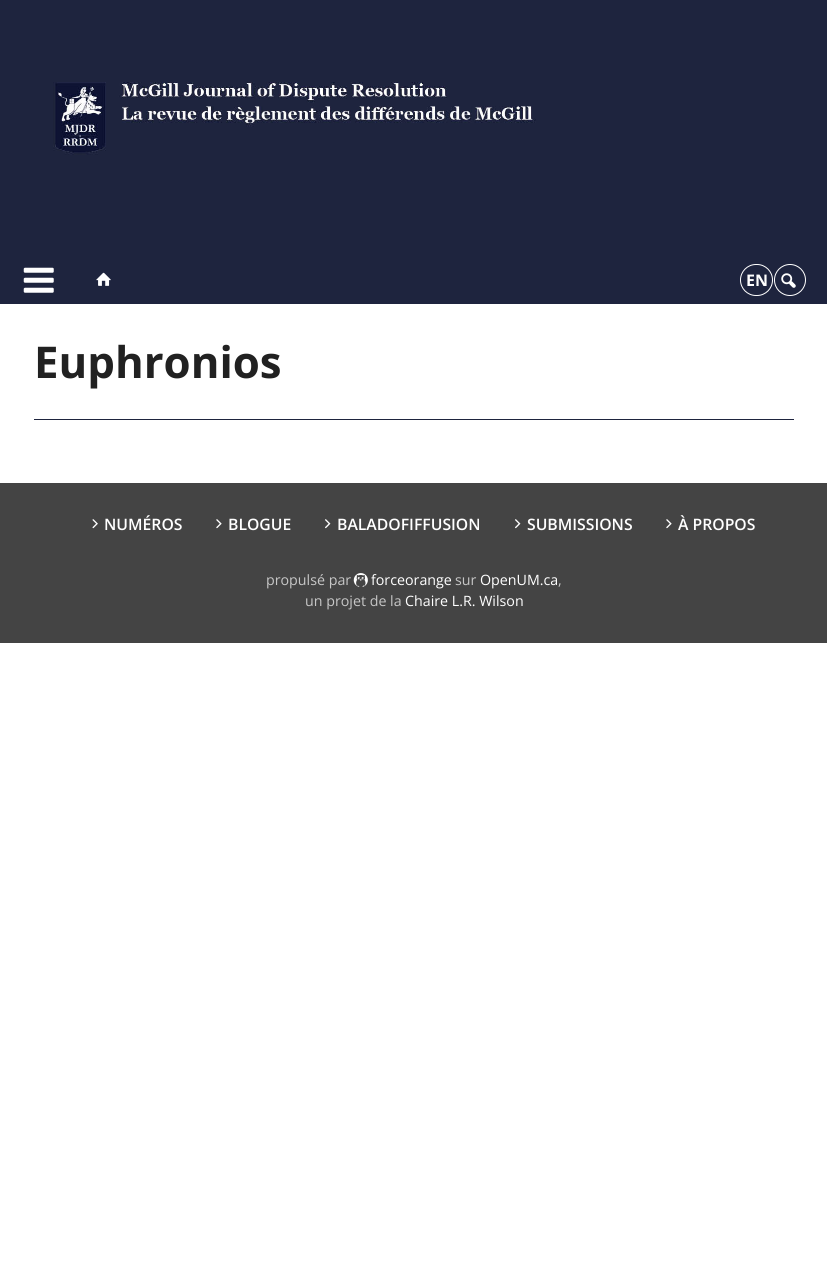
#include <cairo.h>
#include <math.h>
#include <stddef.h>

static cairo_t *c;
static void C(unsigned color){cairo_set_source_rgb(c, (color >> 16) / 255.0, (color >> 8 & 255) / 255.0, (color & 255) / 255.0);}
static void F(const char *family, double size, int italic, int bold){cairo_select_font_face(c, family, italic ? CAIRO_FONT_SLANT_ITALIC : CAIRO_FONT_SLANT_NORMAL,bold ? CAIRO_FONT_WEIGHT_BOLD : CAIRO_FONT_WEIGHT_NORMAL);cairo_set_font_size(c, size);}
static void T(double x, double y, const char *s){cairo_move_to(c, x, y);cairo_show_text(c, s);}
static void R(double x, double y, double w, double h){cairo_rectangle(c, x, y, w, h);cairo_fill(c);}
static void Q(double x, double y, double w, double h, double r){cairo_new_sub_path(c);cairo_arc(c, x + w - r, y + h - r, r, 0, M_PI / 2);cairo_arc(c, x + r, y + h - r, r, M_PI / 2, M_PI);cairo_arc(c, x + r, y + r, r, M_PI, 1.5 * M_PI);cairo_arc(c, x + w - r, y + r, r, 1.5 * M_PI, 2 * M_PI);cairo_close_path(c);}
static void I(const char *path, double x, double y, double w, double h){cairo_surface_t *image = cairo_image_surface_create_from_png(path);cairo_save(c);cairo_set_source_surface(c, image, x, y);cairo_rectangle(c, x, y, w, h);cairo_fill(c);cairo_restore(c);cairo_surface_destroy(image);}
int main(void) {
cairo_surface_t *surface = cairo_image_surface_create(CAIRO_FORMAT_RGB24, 827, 1273);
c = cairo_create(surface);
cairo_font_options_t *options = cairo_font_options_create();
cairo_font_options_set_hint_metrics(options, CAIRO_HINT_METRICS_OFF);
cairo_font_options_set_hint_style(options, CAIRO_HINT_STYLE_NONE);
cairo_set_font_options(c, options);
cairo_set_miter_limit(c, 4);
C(0xffffff);
cairo_paint(c);
C(0x1e243e);
R(0,0,827,304);
I("1.png",53,82,483,73);
I("2.png",23,267,31,26);
I("3.png",96,272,15,14);
Q(740.5,264.5,32,31,15.5);
C(0xffffff);
cairo_set_line_width(c,1);
cairo_stroke(c);
F("Open Sans",16,0,1);
T(746,286,"EN");
cairo_new_path(c);
cairo_arc(c,790,280,15.5,0,2 * M_PI);
cairo_stroke(c);
I("4.png",781,273,15,15);
F("Open Sans",43.75,0,1);
C(0x212121);
T(34,378,"Euphronios");
C(0x1e243e);
R(34,419,760,1);
C(0x444444);
R(0,483,827,160);
I("5.png",92,519,6,10);
F("Open Sans SemiBold",15.75,0,0);
C(0xffffff);
T(104,530,"NUMÉROS");
I("6.png",216,519,6,10);
T(228,530,"BLOGUE");
I("7.png",325,519,6,10);
T(337,530,"BALADOFIFFUSION");
I("7.png",515,519,6,10);
T(527,530,"SUBMISSIONS");
I("6.png",666,519,6,10);
T(678,530,"À PROPOS");
F("Open Sans",14.25,0,0);
C(0xc7c7c7);
T(266,585,"propulsé par");
I("8.png",353,573,15,14);
C(0xffffff);
T(371,585,"forceorange");
C(0xc7c7c7);
T(455,585,"sur");
C(0xffffff);
T(480,585,"OpenUM.ca");
C(0xc7c7c7);
T(558,585,",");
T(305,606,"un projet de la");
C(0xffffff);
T(405,606,"Chaire L.R. Wilson");
cairo_surface_write_to_png(surface, "o.png");
cairo_font_options_destroy(options);
cairo_destroy(c);
cairo_surface_destroy(surface);
return 0;
}
